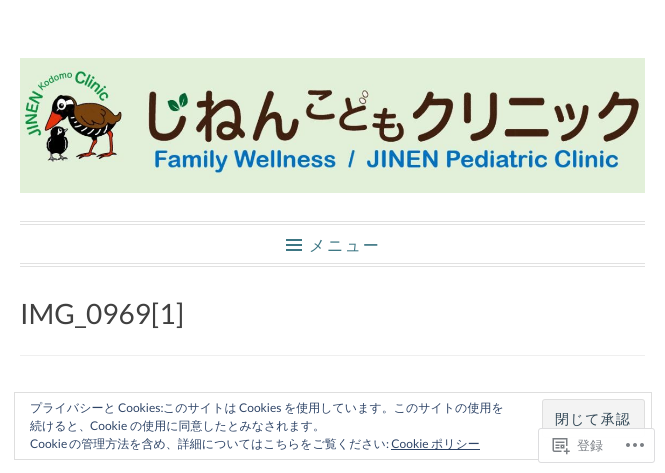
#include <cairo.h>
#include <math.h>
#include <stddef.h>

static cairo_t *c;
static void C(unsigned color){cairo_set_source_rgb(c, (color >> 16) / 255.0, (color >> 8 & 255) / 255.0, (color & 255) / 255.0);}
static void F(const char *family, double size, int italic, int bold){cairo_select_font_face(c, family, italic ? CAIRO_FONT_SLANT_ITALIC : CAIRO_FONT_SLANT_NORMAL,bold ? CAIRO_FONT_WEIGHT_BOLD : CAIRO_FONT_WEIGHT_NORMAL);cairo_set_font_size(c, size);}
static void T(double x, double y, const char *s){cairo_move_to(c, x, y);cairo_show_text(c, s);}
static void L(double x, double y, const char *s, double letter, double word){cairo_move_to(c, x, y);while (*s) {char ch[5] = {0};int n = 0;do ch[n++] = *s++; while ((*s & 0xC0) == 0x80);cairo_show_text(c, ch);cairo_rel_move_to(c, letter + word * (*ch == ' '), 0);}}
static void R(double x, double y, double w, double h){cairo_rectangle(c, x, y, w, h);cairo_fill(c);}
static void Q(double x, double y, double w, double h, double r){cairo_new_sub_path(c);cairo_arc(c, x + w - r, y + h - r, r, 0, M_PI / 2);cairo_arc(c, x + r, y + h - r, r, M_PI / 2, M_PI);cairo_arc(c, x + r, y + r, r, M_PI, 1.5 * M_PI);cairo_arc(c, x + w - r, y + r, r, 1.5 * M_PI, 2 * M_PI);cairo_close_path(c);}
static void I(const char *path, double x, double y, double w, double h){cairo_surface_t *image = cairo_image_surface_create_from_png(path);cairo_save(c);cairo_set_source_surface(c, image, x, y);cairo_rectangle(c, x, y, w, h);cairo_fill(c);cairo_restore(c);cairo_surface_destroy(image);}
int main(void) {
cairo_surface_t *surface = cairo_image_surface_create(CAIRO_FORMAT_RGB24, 665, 473);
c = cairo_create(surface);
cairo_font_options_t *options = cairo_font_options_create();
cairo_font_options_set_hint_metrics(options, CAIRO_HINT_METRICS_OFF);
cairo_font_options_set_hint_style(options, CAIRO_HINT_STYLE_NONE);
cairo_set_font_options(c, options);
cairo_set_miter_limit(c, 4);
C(0xffffff);
cairo_paint(c);
I("1.png",20,58,625,135);
C(0xe1e1e1);
R(20,221,625,1);
R(20,224,625,1);
R(20,263,625,1);
R(20,266,625,1);
I("2.png",286,239,16,12);
F("WenQuanYi Zen Hei Medium",16,0,0);
C(0x3c7683);
L(309,251,"メニュー",1.5,0);
F("Lato",28,0,0);
C(0x404040);
T(20,324,"IMG_0969[1]");
C(0xefefef);
R(20,355,625,1);
cairo_rectangle(c,14.5,392.5,637,67);
C(0xdedede);
cairo_set_line_width(c,1);
cairo_stroke(c);
F("WenQuanYi Zen Hei Medium",12,0,0);
C(0x2e4467);
T(30,412,"プライバシーと");
F("Lato",12,0,0);
T(118,412,"Cookies:");
F("WenQuanYi Zen Hei Medium",12,0,0);
T(163,412,"このサイトは");
F("Lato",12,0,0);
T(239,412,"Cookies");
F("WenQuanYi Zen Hei Medium",12,0,0);
T(284,412,"を使用しています。このサイトの使用を");
T(30,430,"続けると、");
F("Lato",12,0,0);
T(90,430,"Cookie");
F("WenQuanYi Zen Hei Medium",12,0,0);
T(130,430,"の使用に同意したとみなされます。");
C(0xf3f3f3);
Q(542.5,399.5,102,38,2.5);
cairo_fill_preserve(c);
C(0xdedede);
cairo_stroke(c);
F("WenQuanYi Zen Hei Medium",14,0,0);
C(0x2e4453);
L(555,424,"閉じて承認",1,0);
F("Lato",12,0,0);
C(0x2e4467);
T(30,448,"Cookie");
F("WenQuanYi Zen Hei Medium",12,0,0);
T(69,448,"の管理方法を含め、詳細についてはこちらをご覧ください");
F("Lato",12,0,0);
T(386,448,": Cookie");
R(391,449,89,1);
F("WenQuanYi Zen Hei Medium",12,0,0);
T(431,448,"ポリシー");
cairo_set_source_rgba(c,1,1,1,0.98);
Q(538.5,428.5,116,34,2.5);
cairo_fill_preserve(c);
C(0xdddddf);
cairo_stroke(c);
I("3.png",552,438,18,17);
F("WenQuanYi Zen Hei Medium",13,0,0);
C(0x7b7f85);
T(577,450,"登録");
I("4.png",626,443,18,4);
cairo_surface_write_to_png(surface, "o.png");
cairo_font_options_destroy(options);
cairo_destroy(c);
cairo_surface_destroy(surface);
return 0;
}
